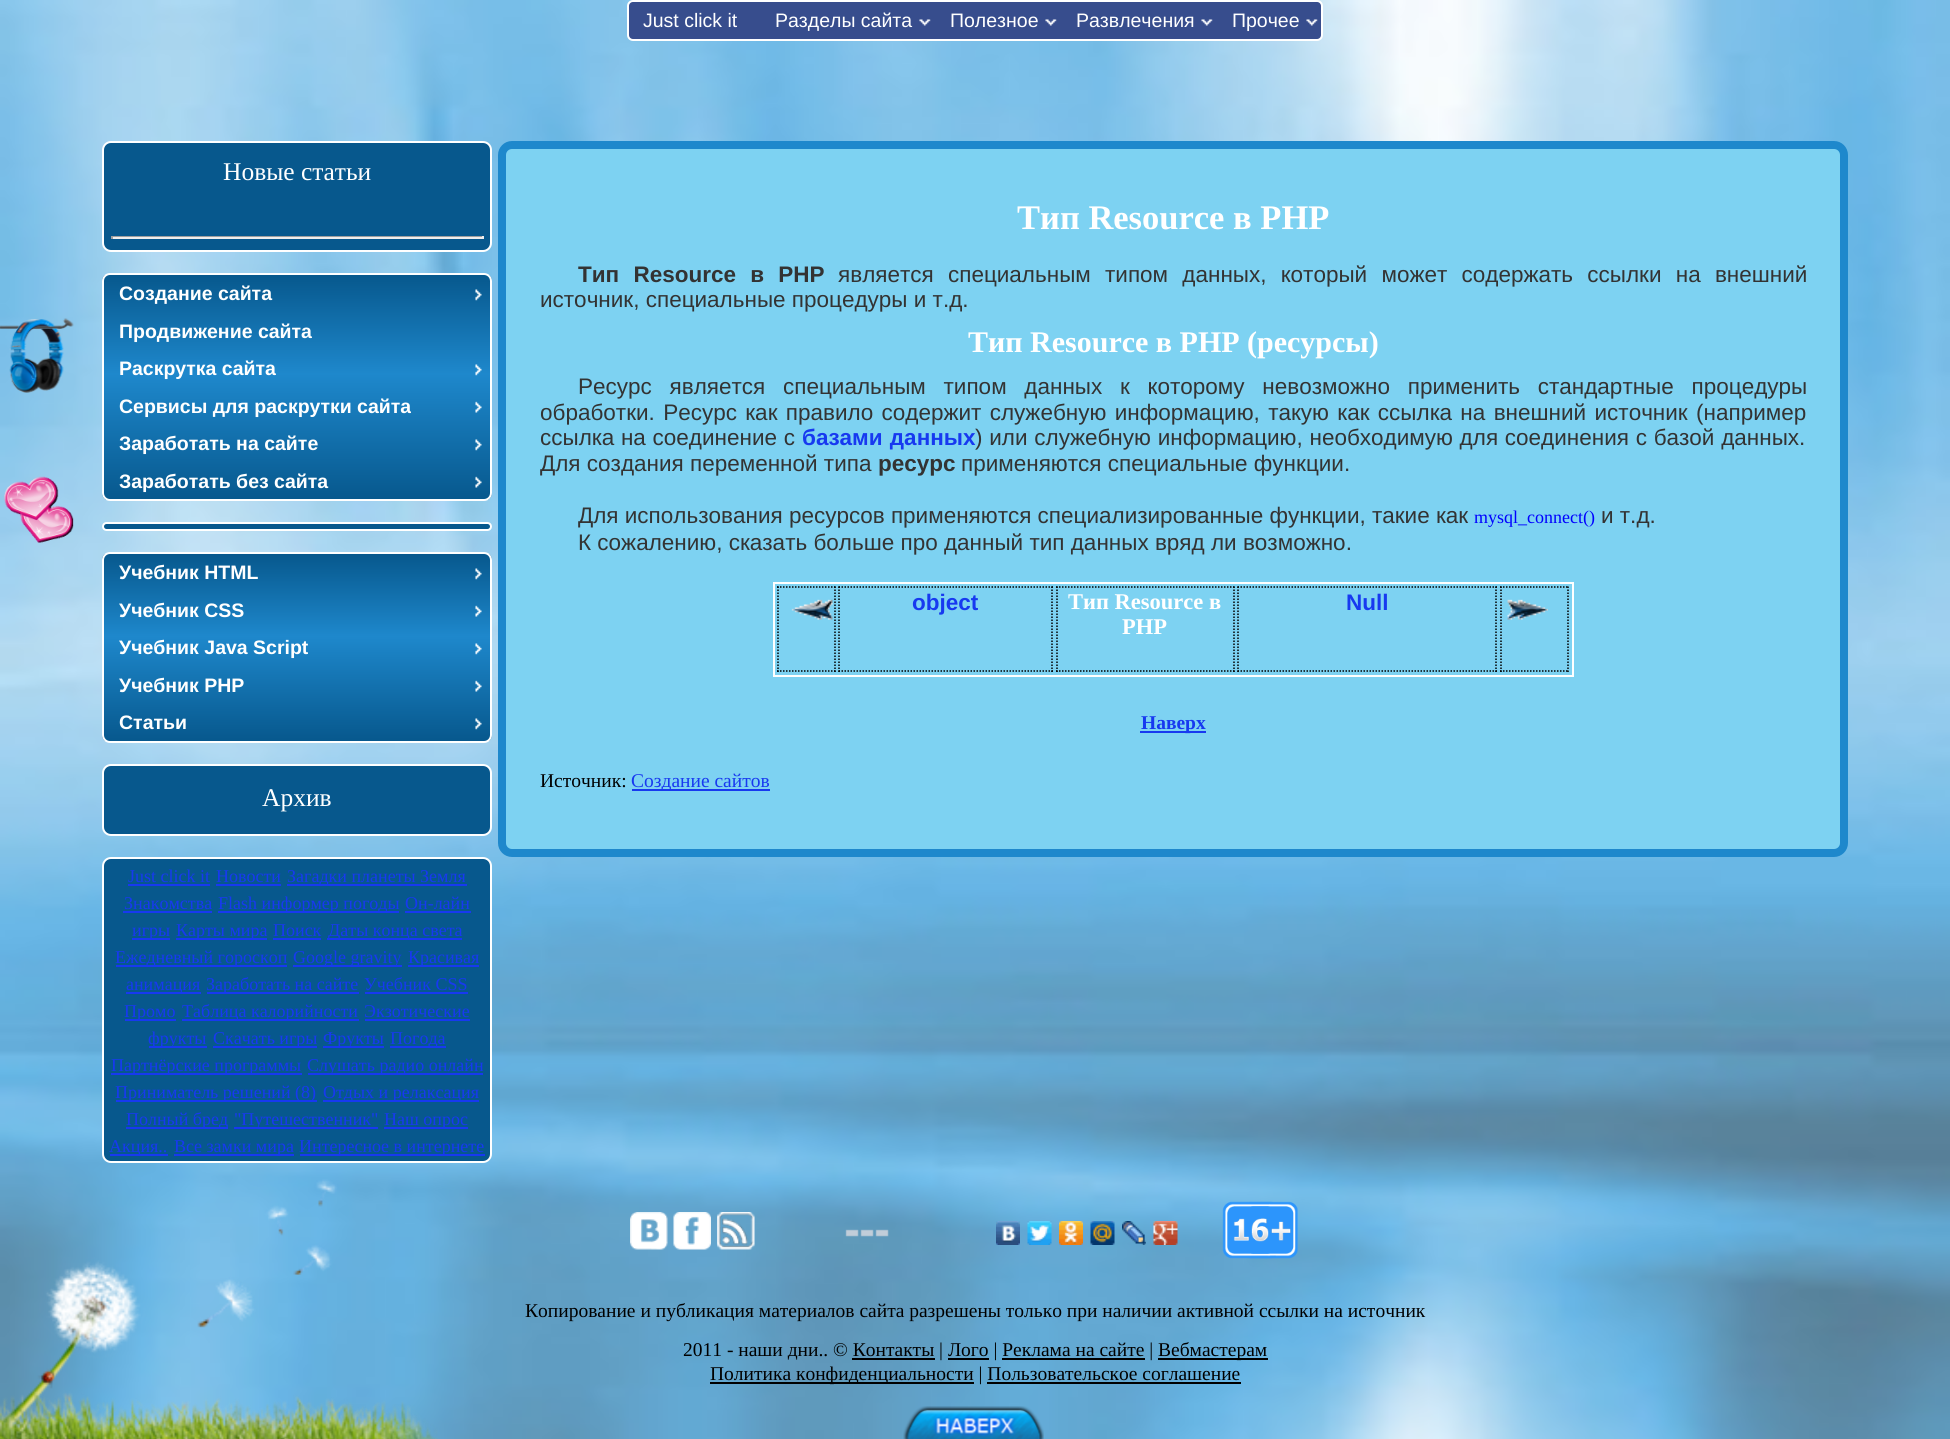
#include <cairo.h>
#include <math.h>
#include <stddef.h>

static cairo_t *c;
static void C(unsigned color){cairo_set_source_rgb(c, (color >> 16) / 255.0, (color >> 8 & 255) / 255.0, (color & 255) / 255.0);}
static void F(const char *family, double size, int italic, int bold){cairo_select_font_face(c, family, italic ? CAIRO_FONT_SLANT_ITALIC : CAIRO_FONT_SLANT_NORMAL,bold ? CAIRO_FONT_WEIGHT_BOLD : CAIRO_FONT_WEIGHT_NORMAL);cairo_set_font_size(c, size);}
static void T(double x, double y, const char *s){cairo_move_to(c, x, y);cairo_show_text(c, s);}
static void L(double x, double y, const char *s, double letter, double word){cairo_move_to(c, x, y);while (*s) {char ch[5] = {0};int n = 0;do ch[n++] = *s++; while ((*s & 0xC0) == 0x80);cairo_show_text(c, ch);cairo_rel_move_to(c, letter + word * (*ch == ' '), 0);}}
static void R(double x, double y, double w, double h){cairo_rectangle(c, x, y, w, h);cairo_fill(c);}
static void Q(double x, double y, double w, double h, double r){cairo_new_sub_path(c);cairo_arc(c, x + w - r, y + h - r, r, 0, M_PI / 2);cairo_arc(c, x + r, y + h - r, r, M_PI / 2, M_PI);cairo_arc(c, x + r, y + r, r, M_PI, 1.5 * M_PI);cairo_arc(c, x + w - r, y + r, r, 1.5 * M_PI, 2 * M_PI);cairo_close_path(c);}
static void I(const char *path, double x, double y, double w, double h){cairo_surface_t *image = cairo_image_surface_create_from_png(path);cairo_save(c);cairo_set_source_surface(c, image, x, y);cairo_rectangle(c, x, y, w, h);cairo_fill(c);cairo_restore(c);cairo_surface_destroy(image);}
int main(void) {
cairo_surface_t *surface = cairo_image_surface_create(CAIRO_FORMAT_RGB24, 1950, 1439);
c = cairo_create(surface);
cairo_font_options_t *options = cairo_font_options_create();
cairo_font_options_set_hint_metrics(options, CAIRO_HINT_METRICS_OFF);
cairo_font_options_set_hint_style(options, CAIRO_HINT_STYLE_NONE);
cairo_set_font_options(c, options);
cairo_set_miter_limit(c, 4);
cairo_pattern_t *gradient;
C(0xffffff);
cairo_paint(c);
I("1.png",0,0,1950,1439);
C(0x374d8d);
Q(628,1,694,39,5);
cairo_fill_preserve(c);
C(0xffffff);
cairo_stroke(c);
F("Liberation Sans",19.5,0,0);
T(643,27,"Just click it");
I("2.png",919,19,12,7);
T(775,27,"Разделы сайта");
I("3.png",1045,19,12,7);
T(950,27,"Полезное");
I("3.png",1201,19,12,7);
T(1076,27,"Развлечения");
I("3.png",1306,19,12,7);
T(1232,27,"Прочее");
I("4.png",0,318,74,75);
C(0x07588d);
Q(103,142,388,109,8);
cairo_fill_preserve(c);
C(0xffffff);
cairo_stroke(c);
F("Liberation Serif",25.5,0,0);
T(223,180,"Новые статьи");
C(0x9f9f9f);
R(111,236,372,1);
C(0xeeeeee);
R(482,236,2,3);
R(111,237,372,2);
C(0x9f9f9f);
R(111,236,2,3);
cairo_save(c);
Q(102,273,390,228,8);
cairo_clip(c);
gradient = cairo_pattern_create_linear(297,275,297,500);
cairo_pattern_add_color_stop_rgba(gradient,0,0.027,0.345,0.553,1);
cairo_pattern_add_color_stop_rgba(gradient,.44,0.118,0.533,0.8,1);
cairo_pattern_add_color_stop_rgba(gradient,1,0.027,0.345,0.553,1);
cairo_set_source(c,gradient);
cairo_pattern_destroy(gradient);
R(102,275,390,225);
cairo_restore(c);
Q(103,274,388,226,7);
C(0xffffff);
cairo_stroke(c);
I("5.png",475,289,7,12);
F("Liberation Sans",19.5,0,1);
T(119,300,"Создание сайта");
T(119,338,"Продвижение сайта");
I("6.png",475,364,7,12);
T(119,375,"Раскрутка сайта");
I("7.png",475,401,7,12);
T(119,413,"Сервисы для раскрутки сайта");
I("8.png",475,439,7,12);
T(119,450,"Заработать на сайте");
I("9.png",475,476,7,12);
T(119,488,"Заработать без сайта");
C(0x07588d);
Q(103,523,388,7,3.5);
cairo_fill_preserve(c);
C(0xffffff);
cairo_stroke(c);
cairo_save(c);
Q(102,552,390,191,8);
cairo_clip(c);
gradient = cairo_pattern_create_linear(297,554,297,741);
cairo_pattern_add_color_stop_rgba(gradient,0,0.027,0.345,0.553,1);
cairo_pattern_add_color_stop_rgba(gradient,.44,0.118,0.533,0.8,1);
cairo_pattern_add_color_stop_rgba(gradient,1,0.027,0.345,0.553,1);
cairo_set_source(c,gradient);
cairo_pattern_destroy(gradient);
R(102,554,390,187);
cairo_restore(c);
Q(103,553,388,189,7);
cairo_stroke(c);
I("10.png",475,568,7,12);
T(119,579,"Учебник HTML");
I("11.png",475,605,7,12);
T(119,617,"Учебник CSS");
I("12.png",475,643,7,12);
T(119,654,"Учебник Java Script");
I("13.png",475,680,7,12);
T(119,692,"Учебник PHP");
I("14.png",475,718,7,12);
T(119,729,"Статьи");
C(0x07588d);
Q(103,765,388,70,8);
cairo_fill_preserve(c);
C(0xffffff);
cairo_stroke(c);
F("Liberation Serif",25.5,0,0);
T(262,806,"Архив");
C(0x07588d);
Q(103,858,388,304,8);
cairo_fill_preserve(c);
C(0xffffff);
cairo_stroke(c);
F("Liberation Serif",18,0,0);
C(0x1739f0);
T(128,882,"Just click it");
R(128,884,82,2);
T(216,882,"Новости");
R(216,884,65,2);
R(287,884,180,2);
T(287,882,"Загадки планеты Земля");
T(124,909,"Знакомства");
R(123,911,89,2);
R(218,911,181,2);
T(218,909,"Flash информер погоды");
T(405,909,"Он-лайн");
R(405,911,66,2);
R(132,938,38,2);
T(132,936,"игры");
R(176,938,91,2);
T(176,936,"Карты мира");
T(273,936,"Поиск");
R(273,938,48,2);
R(327,938,135,2);
T(328,936,"Даты конца света");
R(116,965,171,2);
T(115,963,"Ежедневный гороскоп");
R(293,965,109,2);
T(293,963,"Google gravity");
R(408,965,71,2);
T(408,963,"Красивая");
R(126,992,75,2);
T(126,990,"анимация");
R(207,992,152,2);
T(206,990,"Заработать на сайте");
T(364,990,"Учебник CSS");
R(365,992,103,2);
R(125,1019,51,2);
T(124,1017,"Промо");
R(182,1019,177,2);
T(182,1017,"Таблица калорийности");
T(364,1017,"Экзотические");
R(365,1019,105,2);
R(149,1046,58,2);
T(148,1044,"фрукты");
R(213,1046,104,2);
T(213,1044,"Скачать игры");
R(323,1046,61,2);
T(323,1044,"Фрукты");
R(390,1046,56,2);
T(390,1044,"Погода");
R(111,1073,191,2);
T(111,1071,"Партнёрские программы");
R(308,1073,175,2);
T(307,1071,"Слушать радио онлайн");
R(116,1100,201,2);
T(115,1098,"Приниматель решений (8)");
R(323,1100,156,2);
T(323,1098,"Отдых и релаксация");
R(126,1127,102,2);
T(126,1125,"Полный бред");
R(234,1127,144,2);
T(234,1125,"\"Путешественник\"");
R(384,1127,84,2);
T(384,1125,"Наш опрос");
R(110,1154,58,2);
T(109,1152,"Акция..");
R(174,1154,120,2);
T(174,1152,"Все замки мира");
R(300,1154,185,2);
T(299,1152,"Интересное в интернете");
C(0x7dd2f2);
Q(502,145,1342,708,10);
cairo_fill_preserve(c);
C(0x1e88cc);
cairo_set_line_width(c,8);
cairo_stroke(c);
F("Liberation Serif",34.5,0,1);
C(0xffffff);
T(1017,229,"Тип Resource в PHP");
F("Liberation Sans",22.5,0,1);
C(0x333333);
L(578,282,"Тип Resource в PHP",0,8);
F("Liberation Sans",22.5,0,0);
L(838,282,"является специальным типом данных, который может содержать ссылки на внешний",0,8);
T(540,307,"источник, специальные процедуры и т.д.");
F("Liberation Serif",30,0,1);
C(0xffffff);
T(968,352,"Тип Resource в PHP (ресурсы)");
F("Liberation Sans",22.5,0,0);
C(0x333333);
L(578,394,"Ресурс является специальным типом данных к которому невозможно применить стандартные процедуры",0,11.5);
L(540,420,"обработки. Ресурс как правило содержит служебную информацию, такую как ссылка на внешний источник (например",0,2.1);
L(540,445,"ссылка на соединение с",0,.5);
F("Liberation Sans",22.5,0,1);
C(0x1739f0);
L(802,445,"базами данных",0,1);
F("Liberation Sans",22.5,0,0);
C(0x333333);
L(975,445,") или служебную информацию, необходимую для соединения с базой данных.",0,.5);
T(540,471,"Для создания переменной типа");
F("Liberation Sans",22.5,0,1);
T(878,471,"ресурс");
F("Liberation Sans",22.5,0,0);
T(961,471,"применяются специальные функции.");
T(578,523,"Для использования ресурсов применяются специализированные функции, такие как");
F("Liberation Serif",18,0,0);
C(0x0000ff);
T(1474,523,"mysql_connect()");
F("Liberation Sans",22.5,0,0);
C(0x333333);
T(1601,523,"и т.д.");
T(578,550,"К сожалению, сказать больше про данный тип данных вряд ли возможно.");
cairo_rectangle(c,774,583,799,93);
C(0xffffff);
cairo_set_line_width(c,2);
cairo_stroke(c);
cairo_new_path(c);
cairo_move_to(c,777,587);
cairo_line_to(c,835.5,587);
C(0x000000);
cairo_set_line_width(c,1.5);
cairo_set_dash(c,(double[]){1.5,1.5},2,0);
cairo_stroke(c);
cairo_new_path(c);
cairo_move_to(c,835,586.5);
cairo_line_to(c,835,672);
cairo_stroke(c);
cairo_new_path(c);
cairo_move_to(c,777,671);
cairo_line_to(c,835.5,671);
cairo_stroke(c);
cairo_new_path(c);
cairo_move_to(c,778,586.5);
cairo_line_to(c,778,672);
cairo_stroke(c);
I("15.png",791,599,42,21);
cairo_new_path(c);
cairo_move_to(c,838.5,587);
cairo_line_to(c,1053,587);
cairo_stroke(c);
cairo_new_path(c);
cairo_move_to(c,1052,586.5);
cairo_line_to(c,1052,672);
cairo_stroke(c);
cairo_new_path(c);
cairo_move_to(c,838.5,671);
cairo_line_to(c,1053,671);
cairo_stroke(c);
cairo_new_path(c);
cairo_move_to(c,839,586.5);
cairo_line_to(c,839,672);
cairo_stroke(c);
F("Liberation Sans",22.5,0,1);
C(0x1739f0);
T(912,610,"object");
cairo_new_path(c);
cairo_move_to(c,1056,587);
cairo_line_to(c,1234.5,587);
C(0x000000);
cairo_stroke(c);
cairo_new_path(c);
cairo_move_to(c,1234,586.5);
cairo_line_to(c,1234,672);
cairo_stroke(c);
cairo_new_path(c);
cairo_move_to(c,1056,671);
cairo_line_to(c,1234.5,671);
cairo_stroke(c);
cairo_new_path(c);
cairo_move_to(c,1057,586.5);
cairo_line_to(c,1057,672);
cairo_stroke(c);
F("Liberation Serif",22.5,0,1);
C(0xffffff);
T(1068,609,"Тип Resource в");
T(1122,634,"PHP");
cairo_new_path(c);
cairo_move_to(c,1237.5,587);
cairo_line_to(c,1497,587);
C(0x000000);
cairo_stroke(c);
cairo_new_path(c);
cairo_move_to(c,1496,586.5);
cairo_line_to(c,1496,672);
cairo_stroke(c);
cairo_new_path(c);
cairo_move_to(c,1237.5,671);
cairo_line_to(c,1497,671);
cairo_stroke(c);
cairo_new_path(c);
cairo_move_to(c,1238,586.5);
cairo_line_to(c,1238,672);
cairo_stroke(c);
F("Liberation Sans",22.5,0,1);
C(0x1739f0);
T(1346,610,"Null");
cairo_new_path(c);
cairo_move_to(c,1500,587);
cairo_line_to(c,1569,587);
C(0x000000);
cairo_stroke(c);
cairo_new_path(c);
cairo_move_to(c,1568,586.5);
cairo_line_to(c,1568,672);
cairo_stroke(c);
cairo_new_path(c);
cairo_move_to(c,1500,671);
cairo_line_to(c,1569,671);
cairo_stroke(c);
cairo_new_path(c);
cairo_move_to(c,1501,586.5);
cairo_line_to(c,1501,672);
cairo_stroke(c);
I("16.png",1507,599,41,21);
C(0x1739f0);
R(1140,731,66,2);
F("Liberation Serif",19.5,0,1);
T(1141,729,"Наверх");
F("Liberation Serif",19.5,0,0);
C(0x000000);
T(540,787,"Источник:");
C(0x1739f0);
R(632,789,138,2);
T(631,787,"Создание сайтов");
I("17.png",4,476,70,67);
I("18.png",0,1179,438,260);
I("19.png",903,1406,141,33);
I("20.png",630,1212,38,38);
I("21.png",673,1212,38,38);
I("22.png",717,1212,38,38);
I("23.png",845,1229,44,8);
I("24.png",996,1221,24,24);
I("25.png",1027,1221,25,24);
I("26.png",1059,1221,24,24);
I("27.png",1090,1221,25,24);
I("28.png",1122,1221,24,24);
I("29.png",1153,1221,25,24);
I("30.png",1222,1201,76,58);
C(0x000000);
T(525,1317,"Копирование и публикация материалов сайта разрешены только при наличии активной ссылки на источник");
T(683,1356,"2011 - наши дни.. © Контакты | Лого | Реклама на сайте |");
R(1158,1358,110,2);
T(1158,1356,"Вебмастерам");
R(852,1358,83,2);
R(948,1358,41,2);
R(1002,1358,143,2);
R(710,1382,264,2);
T(710,1380,"Политика конфиденциальности | Пользовательское соглашение");
R(987,1382,254,2);
cairo_surface_write_to_png(surface, "o.png");
cairo_font_options_destroy(options);
cairo_destroy(c);
cairo_surface_destroy(surface);
return 0;
}
